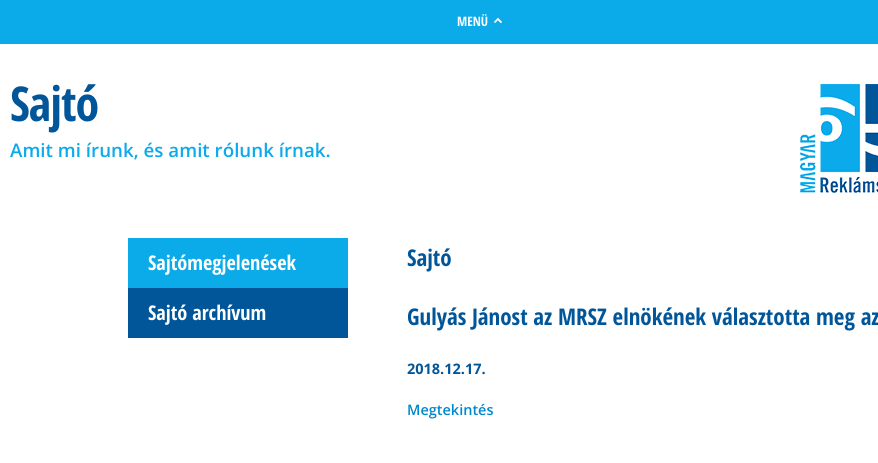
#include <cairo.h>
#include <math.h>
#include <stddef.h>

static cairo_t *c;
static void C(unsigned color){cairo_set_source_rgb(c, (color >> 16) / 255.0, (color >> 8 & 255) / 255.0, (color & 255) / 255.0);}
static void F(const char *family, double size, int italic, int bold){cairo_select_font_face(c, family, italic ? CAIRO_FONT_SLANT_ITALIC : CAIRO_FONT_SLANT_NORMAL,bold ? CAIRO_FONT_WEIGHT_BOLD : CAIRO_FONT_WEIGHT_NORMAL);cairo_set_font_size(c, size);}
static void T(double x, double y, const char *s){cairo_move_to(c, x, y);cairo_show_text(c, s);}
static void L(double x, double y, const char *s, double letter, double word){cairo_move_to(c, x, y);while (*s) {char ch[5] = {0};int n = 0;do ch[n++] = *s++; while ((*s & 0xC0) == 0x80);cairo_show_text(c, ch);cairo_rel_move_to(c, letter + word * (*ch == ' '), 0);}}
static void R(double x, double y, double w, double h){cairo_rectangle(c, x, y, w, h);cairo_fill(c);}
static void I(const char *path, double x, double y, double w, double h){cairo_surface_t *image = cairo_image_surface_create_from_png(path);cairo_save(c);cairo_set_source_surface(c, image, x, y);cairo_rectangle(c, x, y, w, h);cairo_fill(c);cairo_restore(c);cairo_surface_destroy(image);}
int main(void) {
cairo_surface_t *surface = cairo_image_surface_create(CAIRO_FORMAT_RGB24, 878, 463);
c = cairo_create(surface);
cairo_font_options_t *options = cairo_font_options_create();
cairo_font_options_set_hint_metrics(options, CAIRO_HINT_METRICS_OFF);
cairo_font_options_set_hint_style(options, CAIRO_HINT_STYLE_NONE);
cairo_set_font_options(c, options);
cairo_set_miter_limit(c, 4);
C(0xffffff);
cairo_paint(c);
C(0x0babea);
R(0,0,878,44);
F("Open Sans Condensed",13,0,1);
C(0xffffff);
T(457,26,"MENÜ");
I("1.png",494,18,8,5);
F("Open Sans Condensed",48,0,1);
C(0x015699);
L(10,121,"Sajtó",-1,0);
F("Open Sans SemiBold",18.75,0,0);
C(0x0baaeb);
T(10,157,"Amit mi írunk, és amit rólunk írnak.");
I("2.png",800,84,78,109);
C(0x005698);
R(128,288,220,50);
C(0x0babea);
R(128,238,220,50);
F("Open Sans Condensed",20.25,0,1);
C(0xffffff);
T(148,270,"Sajtómegjelenések");
T(148,320,"Sajtó archívum");
F("Open Sans Condensed",23,0,1);
C(0x015699);
T(407,266,"Sajtó");
T(407,325,"Gulyás Jánost az MRSZ elnökének választotta meg az");
F("Open Sans",14.5,0,1);
T(407,374,"2018.12.17.");
F("Open Sans SemiBold",14.5,0,0);
C(0x0088cc);
T(407,415,"Megtekintés");
cairo_surface_write_to_png(surface, "o.png");
cairo_font_options_destroy(options);
cairo_destroy(c);
cairo_surface_destroy(surface);
return 0;
}
